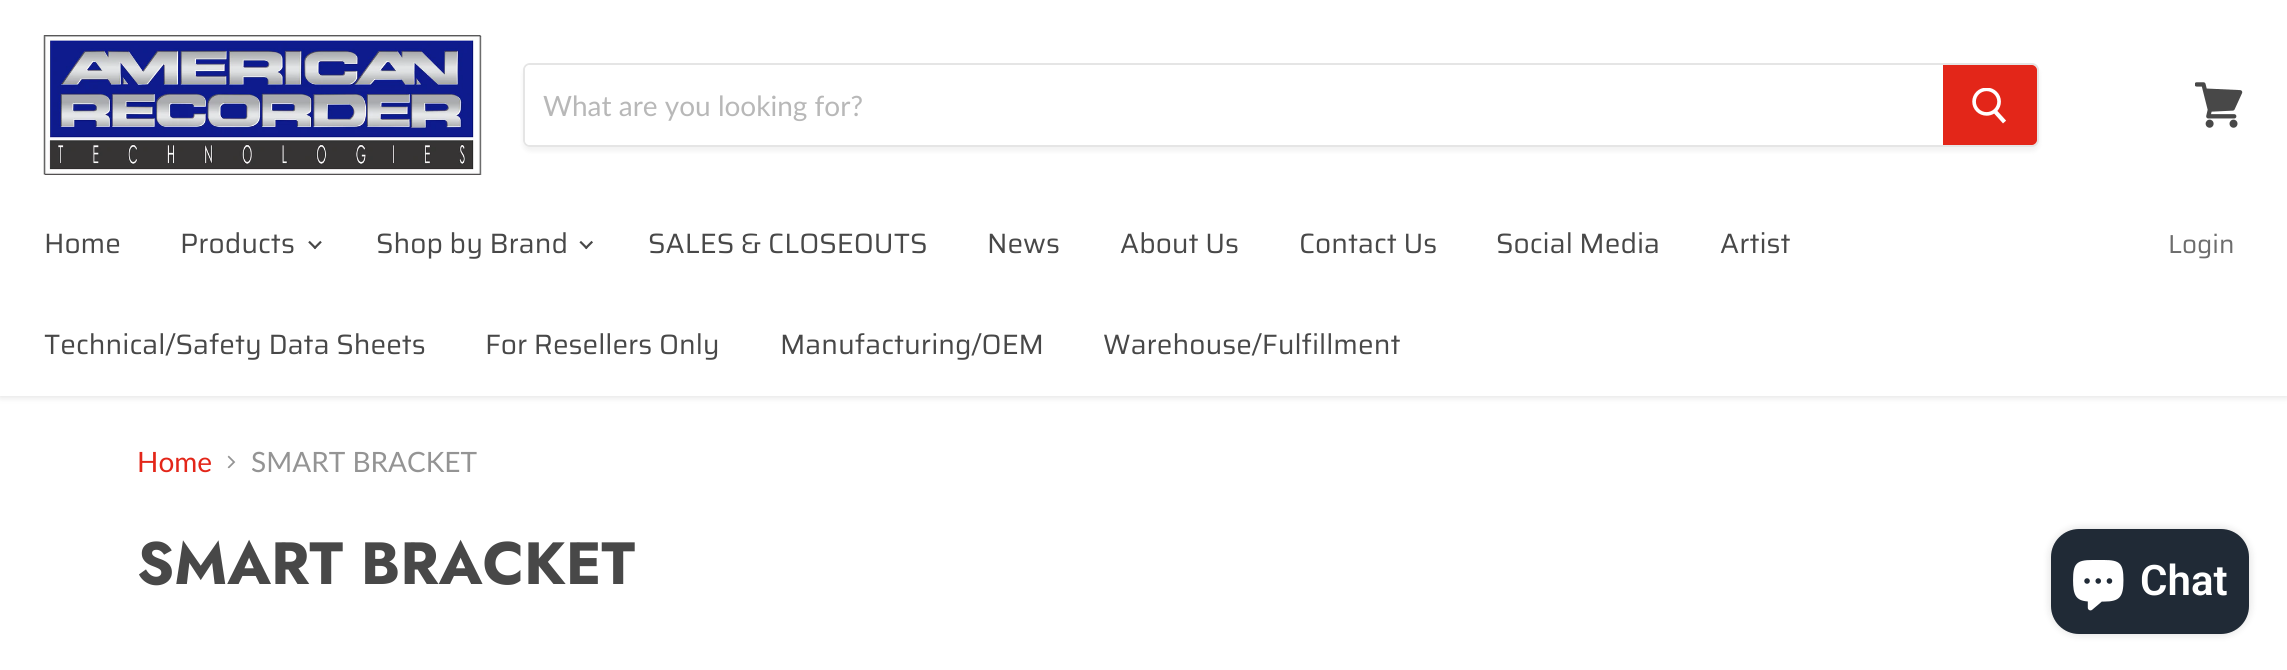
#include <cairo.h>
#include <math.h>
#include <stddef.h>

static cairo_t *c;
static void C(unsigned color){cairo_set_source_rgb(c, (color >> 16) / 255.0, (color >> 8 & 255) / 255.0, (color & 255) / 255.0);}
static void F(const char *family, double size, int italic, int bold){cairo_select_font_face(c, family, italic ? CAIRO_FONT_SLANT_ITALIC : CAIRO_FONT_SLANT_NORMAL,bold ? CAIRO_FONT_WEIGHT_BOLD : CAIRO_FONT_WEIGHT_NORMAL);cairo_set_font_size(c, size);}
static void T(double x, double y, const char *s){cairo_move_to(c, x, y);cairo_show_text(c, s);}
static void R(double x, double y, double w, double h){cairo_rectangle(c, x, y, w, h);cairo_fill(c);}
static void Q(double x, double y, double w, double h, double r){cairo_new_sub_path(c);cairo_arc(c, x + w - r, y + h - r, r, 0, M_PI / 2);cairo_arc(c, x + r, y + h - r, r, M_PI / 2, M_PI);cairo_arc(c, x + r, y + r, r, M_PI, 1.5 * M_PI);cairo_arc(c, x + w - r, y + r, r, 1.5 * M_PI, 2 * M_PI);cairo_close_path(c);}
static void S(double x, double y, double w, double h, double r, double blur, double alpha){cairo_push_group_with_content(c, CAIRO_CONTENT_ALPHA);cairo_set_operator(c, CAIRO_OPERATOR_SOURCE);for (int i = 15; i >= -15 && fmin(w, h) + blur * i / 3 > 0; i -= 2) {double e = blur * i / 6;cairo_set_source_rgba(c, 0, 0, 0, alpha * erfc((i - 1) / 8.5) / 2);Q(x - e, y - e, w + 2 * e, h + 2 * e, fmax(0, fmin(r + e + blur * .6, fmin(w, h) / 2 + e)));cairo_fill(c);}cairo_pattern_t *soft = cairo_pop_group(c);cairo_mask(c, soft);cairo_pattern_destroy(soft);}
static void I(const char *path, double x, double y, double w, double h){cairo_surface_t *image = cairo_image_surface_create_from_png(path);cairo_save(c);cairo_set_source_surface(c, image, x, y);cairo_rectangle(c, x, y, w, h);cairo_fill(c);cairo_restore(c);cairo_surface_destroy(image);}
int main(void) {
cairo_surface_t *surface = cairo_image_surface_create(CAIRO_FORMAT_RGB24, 2287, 670);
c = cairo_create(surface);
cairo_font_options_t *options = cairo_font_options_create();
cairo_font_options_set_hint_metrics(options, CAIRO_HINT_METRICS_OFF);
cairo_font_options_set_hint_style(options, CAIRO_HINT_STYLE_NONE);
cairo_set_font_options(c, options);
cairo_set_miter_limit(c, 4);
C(0xffffff);
cairo_paint(c);
C(0x808080);
S(0,2,2287,395,0,3.5,.25);
C(0xffffff);
R(0,0,2287,396);
I("1.png",43,35,439,140);
cairo_save(c);
cairo_set_fill_rule(c,CAIRO_FILL_RULE_EVEN_ODD);
cairo_new_path(c);
cairo_move_to(c,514,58);
cairo_line_to(c,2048,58);
cairo_line_to(c,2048,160);
cairo_line_to(c,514,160);
cairo_close_path(c);
cairo_move_to(c,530,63);
cairo_line_to(c,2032,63);
cairo_curve_to(c,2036,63,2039,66,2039,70);
cairo_line_to(c,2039,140);
cairo_curve_to(c,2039,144,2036,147,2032,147);
cairo_line_to(c,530,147);
cairo_curve_to(c,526,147,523,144,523,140);
cairo_line_to(c,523,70);
cairo_curve_to(c,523,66,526,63,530,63);
cairo_close_path(c);
cairo_clip(c);
C(0x808080);
S(523,67,1516,84,7,2.5,.11);
cairo_restore(c);
Q(524,64,1514,82,6);
cairo_set_source_rgba(c,0.502,0.502,0.502,0.2);
cairo_stroke(c);
C(0xffffff);
cairo_new_path(c);
cairo_move_to(c,530,65);
cairo_line_to(c,1943,65);
cairo_line_to(c,1943,145);
cairo_line_to(c,530,145);
cairo_curve_to(c,527,145,525,143,525,140);
cairo_line_to(c,525,70);
cairo_curve_to(c,525,67,527,65,530,65);
cairo_close_path(c);
cairo_fill(c);
F("Lato",28,0,0);
C(0xb8b8b8);
T(543,116,"What are you looking for?");
C(0xe32619);
cairo_new_path(c);
cairo_move_to(c,1944,66);
cairo_line_to(c,2032,66);
cairo_curve_to(c,2034,66,2036,68,2036,70);
cairo_line_to(c,2036,140);
cairo_curve_to(c,2036,142,2034,144,2032,144);
cairo_line_to(c,1944,144);
cairo_close_path(c);
cairo_fill_preserve(c);
cairo_stroke(c);
I("2.png",1972,88,34,36);
I("3.png",2195,82,48,46);
F("Saira",28,0,0);
C(0x484848);
T(44,253,"Home");
T(180,253,"Products");
I("4.png",308,240,14,10);
T(376,253,"Shop by Brand");
I("5.png",579,240,14,10);
T(648,253,"SALES & CLOSEOUTS");
T(987,253,"News");
T(1120,253,"About Us");
T(1299,253,"Contact Us");
T(1496,253,"Social Media");
T(1720,253,"Artist");
T(44,354,"Technical/Safety Data Sheets");
T(485,354,"For Resellers Only");
T(780,354,"Manufacturing/OEM");
T(1103,354,"Warehouse/Fulfillment");
F("Saira",26,0,0);
C(0x6d6d6d);
T(2168,253,"Login");
F("Lato",28,0,0);
C(0xe32619);
T(137,472,"Home");
I("6.png",227,455,9,14);
C(0x949494);
T(251,472,"SMART BRACKET");
F("Jost",59.5,0,1);
C(0x484848);
T(137,584,"SMART BRACKET");
C(0x000000);
S(2051,529,198,105,28,4.5,.15);
C(0x202a36);
Q(2051,529,198,105,28);
cairo_fill(c);
I("7.png",2073,560,51,51);
F("Roboto SemiBold",42,0,0);
C(0xffffff);
T(2140,595,"Chat");
cairo_surface_write_to_png(surface, "o.png");
cairo_font_options_destroy(options);
cairo_destroy(c);
cairo_surface_destroy(surface);
return 0;
}
